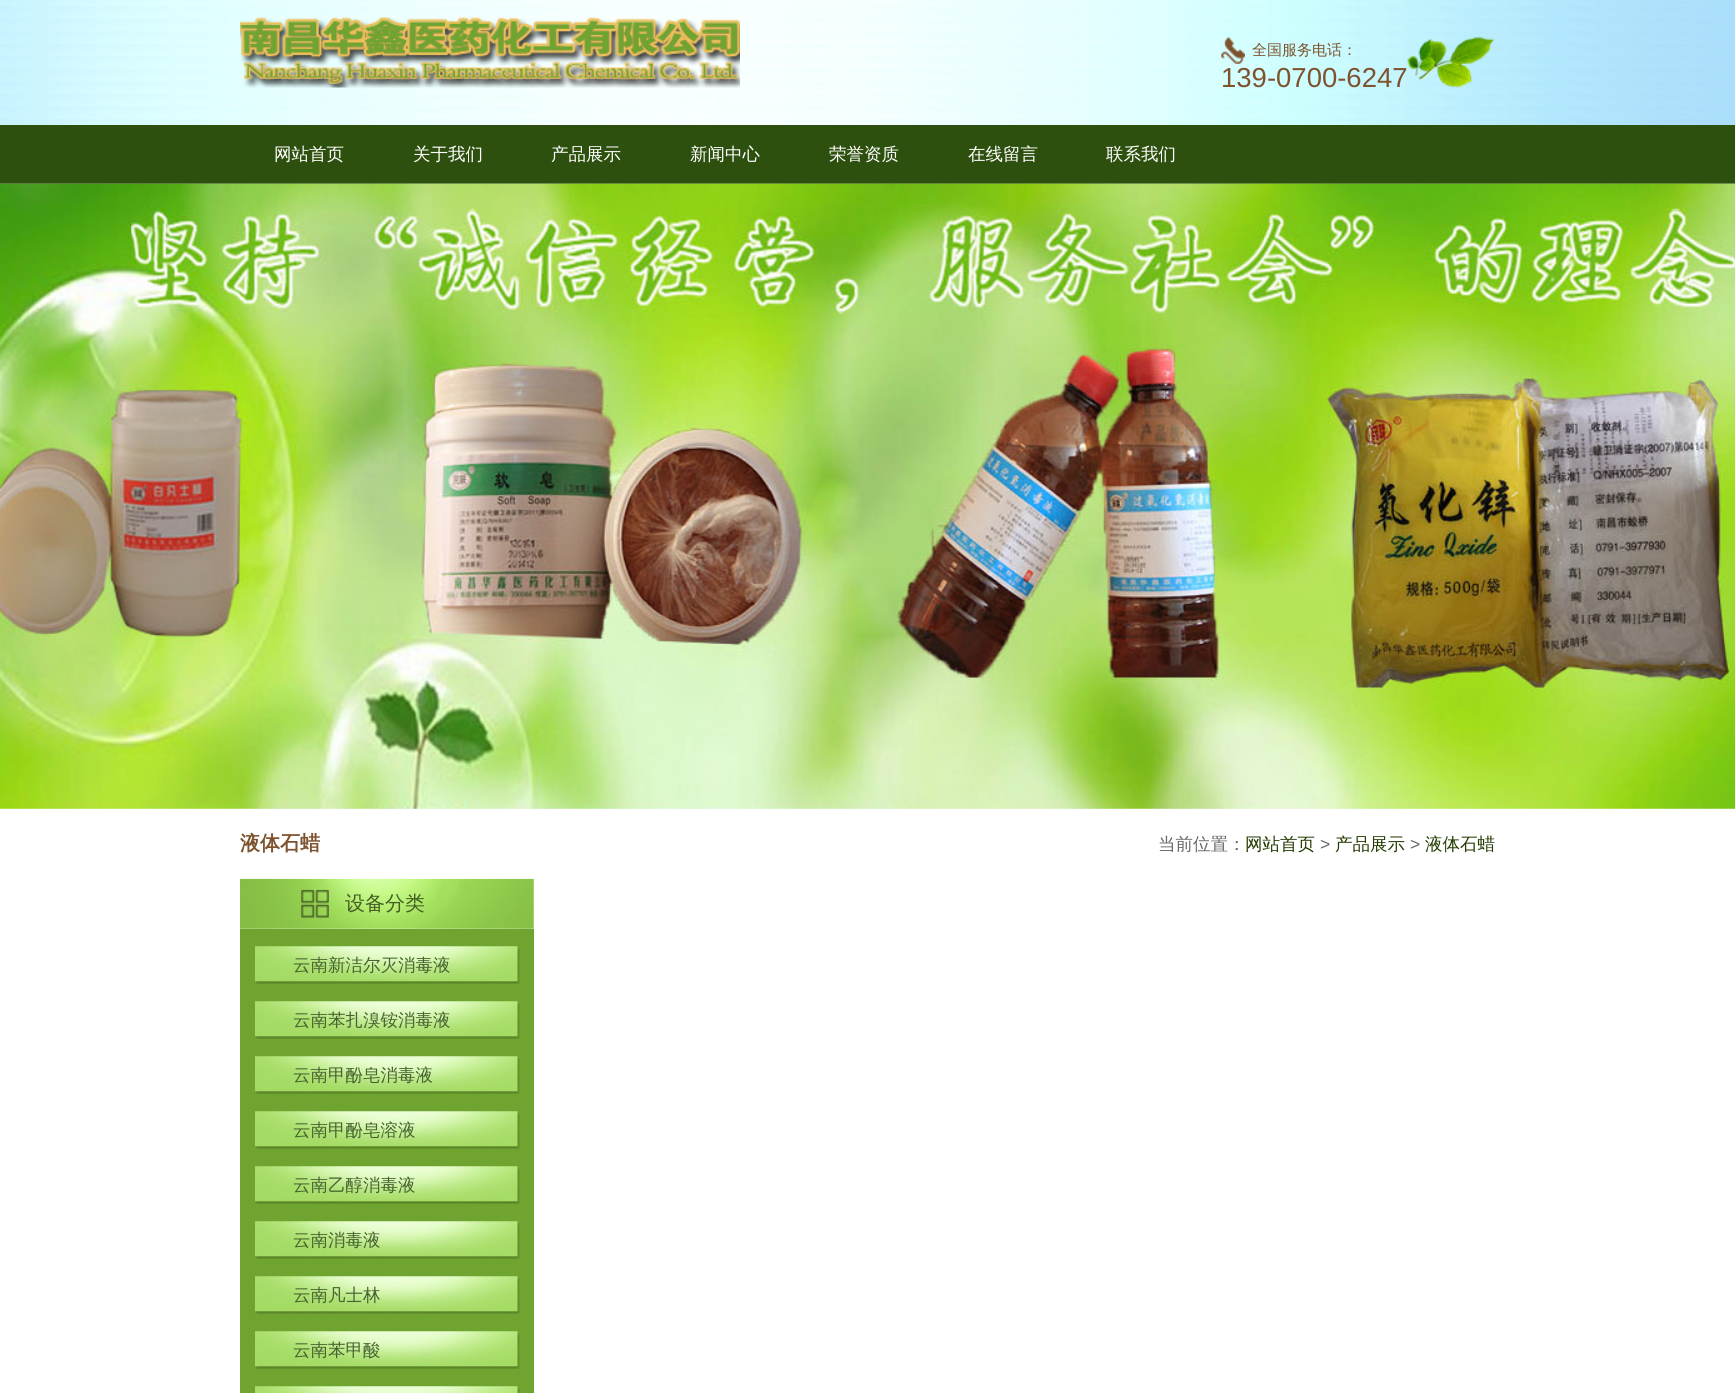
#include <cairo.h>
#include <math.h>
#include <stddef.h>

static cairo_t *c;
static void C(unsigned color){cairo_set_source_rgb(c, (color >> 16) / 255.0, (color >> 8 & 255) / 255.0, (color & 255) / 255.0);}
static void F(const char *family, double size, int italic, int bold){cairo_select_font_face(c, family, italic ? CAIRO_FONT_SLANT_ITALIC : CAIRO_FONT_SLANT_NORMAL,bold ? CAIRO_FONT_WEIGHT_BOLD : CAIRO_FONT_WEIGHT_NORMAL);cairo_set_font_size(c, size);}
static void T(double x, double y, const char *s){cairo_move_to(c, x, y);cairo_show_text(c, s);}
static void R(double x, double y, double w, double h){cairo_rectangle(c, x, y, w, h);cairo_fill(c);}
static void I(const char *path, double x, double y, double w, double h){cairo_surface_t *image = cairo_image_surface_create_from_png(path);cairo_save(c);cairo_set_source_surface(c, image, x, y);cairo_rectangle(c, x, y, w, h);cairo_fill(c);cairo_restore(c);cairo_surface_destroy(image);}
int main(void) {
cairo_surface_t *surface = cairo_image_surface_create(CAIRO_FORMAT_RGB24, 1735, 1393);
c = cairo_create(surface);
cairo_font_options_t *options = cairo_font_options_create();
cairo_font_options_set_hint_metrics(options, CAIRO_HINT_METRICS_OFF);
cairo_font_options_set_hint_style(options, CAIRO_HINT_STYLE_NONE);
cairo_set_font_options(c, options);
cairo_set_miter_limit(c, 4);
C(0xffffff);
cairo_paint(c);
I("1.png",0,0,1735,125);
I("2.png",240,17,500,71);
I("3.png",1407,36,88,52);
I("4.png",1221,37,24,27);
F("WenQuanYi Zen Hei Medium",15,0,0);
C(0x7f522e);
T(1252,55,"全国服务电话：");
F("Liberation Sans",27.5,0,0);
T(1221,87,"139-0700-6247");
C(0x2e500f);
R(0,125,1735,59);
F("WenQuanYi Zen Hei Medium",17.5,0,0);
C(0xffffff);
T(274,160,"网站首页");
T(413,160,"关于我们");
T(551,160,"产品展示");
T(690,160,"新闻中心");
T(829,160,"荣誉资质");
T(968,160,"在线留言");
T(1106,160,"联系我们");
I("5.png",0,183,1735,626);
I("6.png",0,183,1735,626);
F("WenQuanYi Zen Hei",20,0,1);
C(0x7f522e);
T(240,850,"液体石蜡");
F("WenQuanYi Zen Hei Medium",17.5,0,0);
C(0x666666);
T(1158,850,"当前位置：");
C(0x233a00);
T(1245,850,"网站首页");
F("Liberation Sans",17.5,0,0);
C(0x666666);
T(1320,850,">");
F("WenQuanYi Zen Hei Medium",17.5,0,0);
C(0x233a00);
T(1335,850,"产品展示");
F("Liberation Sans",17.5,0,0);
C(0x666666);
T(1410,850,">");
F("WenQuanYi Zen Hei Medium",17.5,0,0);
C(0x233a00);
T(1425,850,"液体石蜡");
I("7.png",240,878,294,51);
F("WenQuanYi Zen Hei Medium",20,0,0);
C(0x445d23);
T(345,910,"设备分类");
C(0x6fa431);
R(240,929,294,464);
I("8.png",255,946,265,38);
F("WenQuanYi Zen Hei Medium",17.5,0,0);
C(0x46622f);
T(293,971,"云南新洁尔灭消毒液");
I("8.png",255,1001,265,38);
T(293,1026,"云南苯扎溴铵消毒液");
I("8.png",255,1056,265,38);
T(293,1081,"云南甲酚皂消毒液");
I("8.png",255,1111,265,38);
T(293,1136,"云南甲酚皂溶液");
I("9.png",255,1166,265,38);
T(293,1191,"云南乙醇消毒液");
I("8.png",255,1221,265,38);
T(293,1246,"云南消毒液");
I("8.png",255,1276,265,38);
T(293,1301,"云南凡士林");
I("8.png",255,1331,265,38);
T(293,1356,"云南苯甲酸");
I("10.png",255,1386,265,7);
cairo_surface_write_to_png(surface, "o.png");
cairo_font_options_destroy(options);
cairo_destroy(c);
cairo_surface_destroy(surface);
return 0;
}
